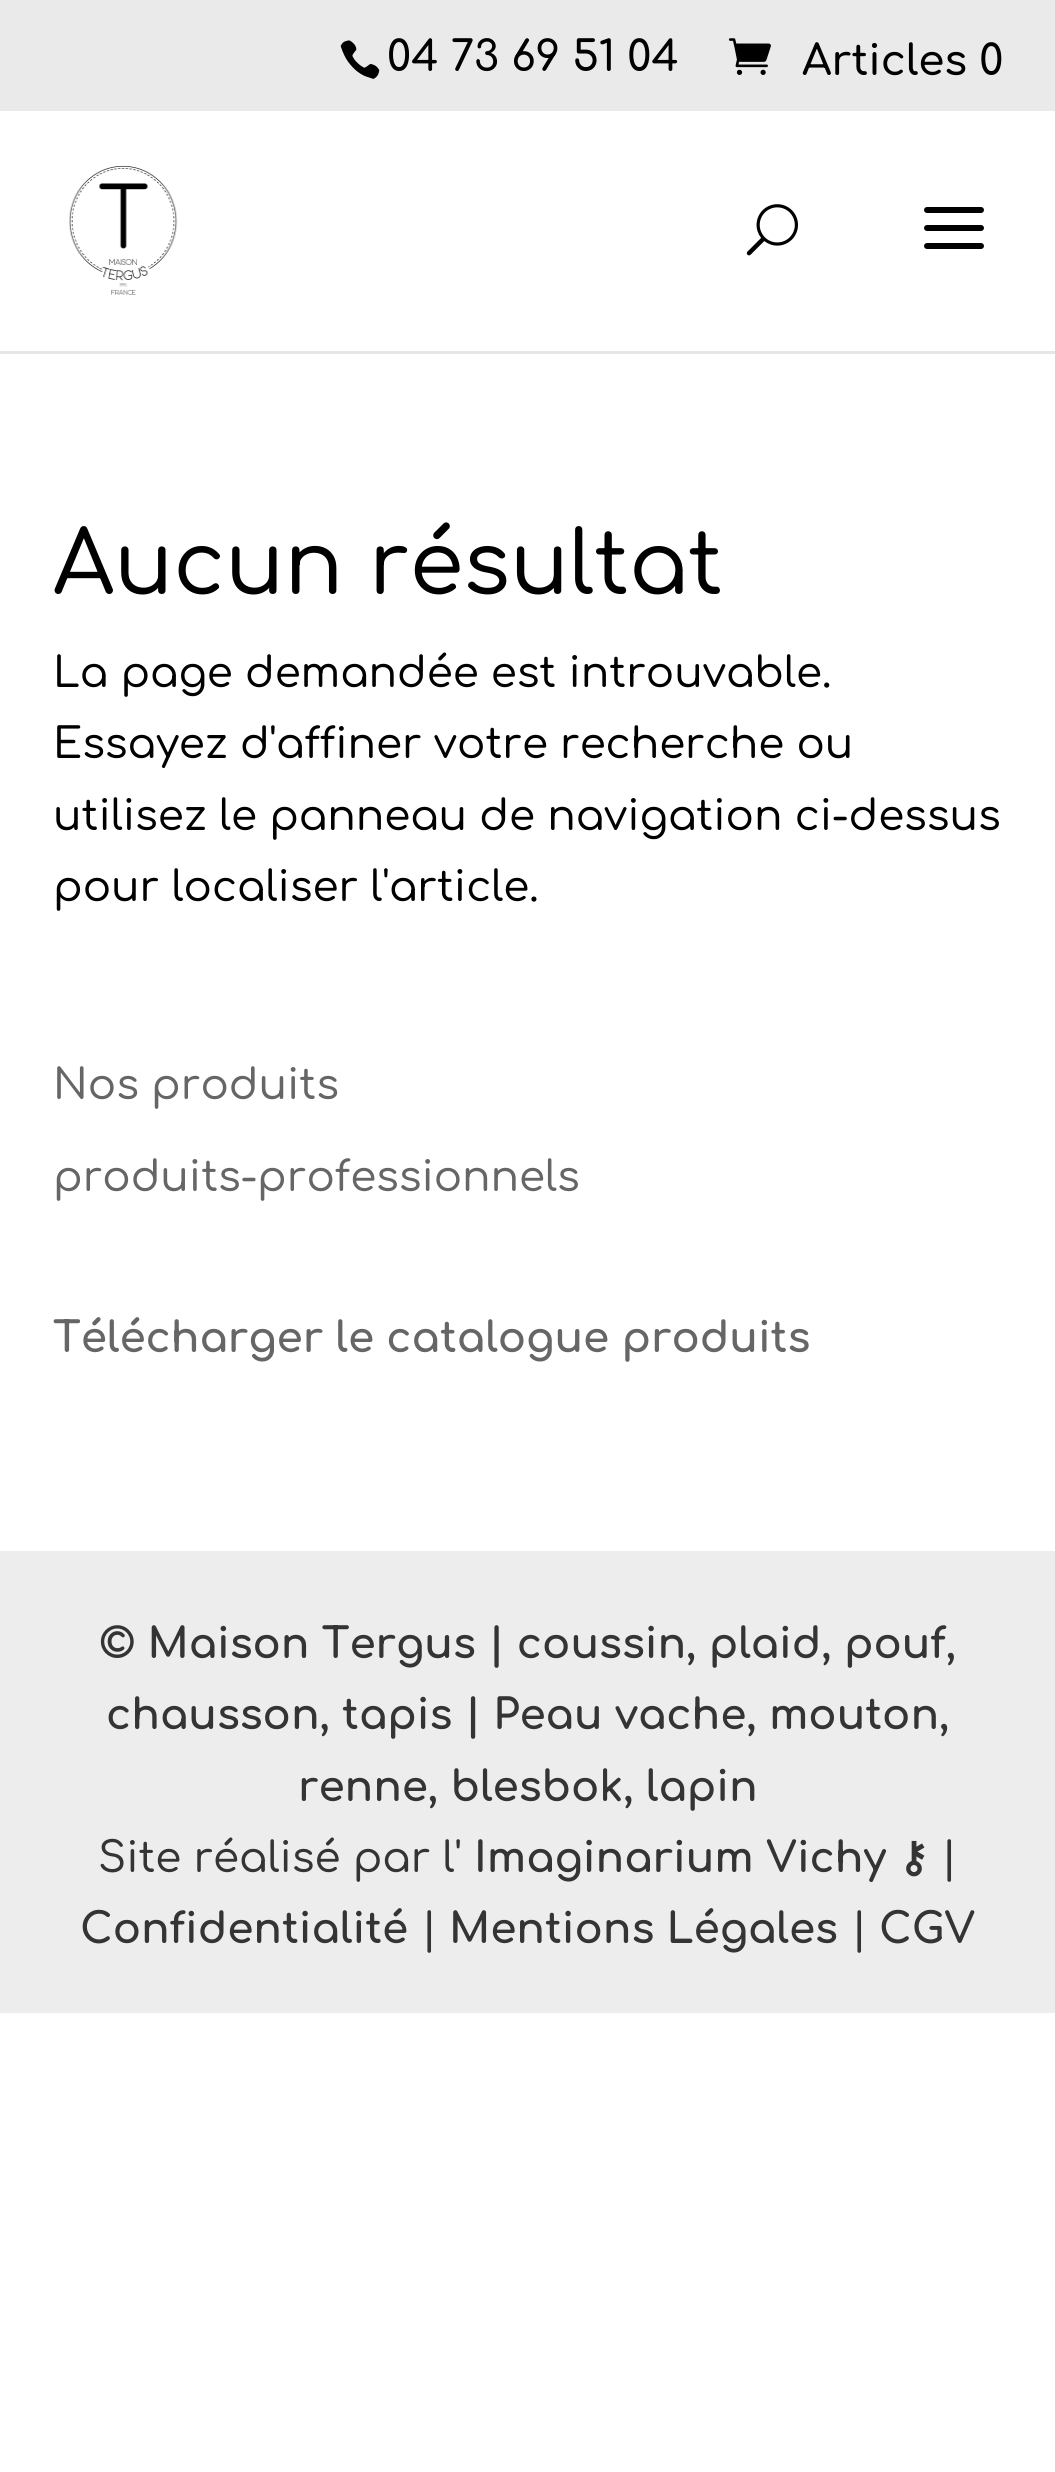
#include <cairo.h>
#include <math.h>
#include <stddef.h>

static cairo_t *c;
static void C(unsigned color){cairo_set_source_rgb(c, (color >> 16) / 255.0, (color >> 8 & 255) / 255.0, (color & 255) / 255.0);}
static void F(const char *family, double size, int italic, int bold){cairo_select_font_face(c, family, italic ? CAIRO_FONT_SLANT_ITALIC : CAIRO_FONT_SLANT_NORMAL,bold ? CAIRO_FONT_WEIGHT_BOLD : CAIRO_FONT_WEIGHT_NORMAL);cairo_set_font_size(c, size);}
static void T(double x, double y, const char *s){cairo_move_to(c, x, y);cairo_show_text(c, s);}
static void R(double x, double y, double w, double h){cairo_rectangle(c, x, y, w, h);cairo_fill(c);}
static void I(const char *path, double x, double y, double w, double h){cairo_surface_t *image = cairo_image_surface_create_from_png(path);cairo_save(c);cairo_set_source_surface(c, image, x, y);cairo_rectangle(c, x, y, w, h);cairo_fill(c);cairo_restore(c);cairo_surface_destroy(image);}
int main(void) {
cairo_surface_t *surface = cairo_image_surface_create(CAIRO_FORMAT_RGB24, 1055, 2472);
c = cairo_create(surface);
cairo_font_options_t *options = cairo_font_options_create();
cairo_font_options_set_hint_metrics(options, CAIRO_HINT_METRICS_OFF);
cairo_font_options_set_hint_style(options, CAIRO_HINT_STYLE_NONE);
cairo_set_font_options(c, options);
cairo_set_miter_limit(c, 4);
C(0xffffff);
cairo_paint(c);
C(0xeaeaea);
R(0,0,1055,111);
I("1.png",340,40,40,39);
F("Comfortaa SemiBold",42,0,0);
C(0x000000);
T(387,71,"04 73 69 51 04");
I("2.png",728,38,43,37);
T(802,75,"Articles 0");
C(0xe6e6e6);
R(0,351,1055,3);
I("3.png",69,165,109,130);
I("4.png",746,204,52,52);
I("5.png",924,207,60,42);
F("Comfortaa Medium",87,0,0);
C(0x000000);
T(53,594,"Aucun résultat");
F("Comfortaa Medium",42,0,0);
T(53,687,"La page demandée est introuvable.");
T(53,758,"Essayez d'affiner votre recherche ou");
T(53,830,"utilisez le panneau de navigation ci-dessus");
T(53,901,"pour localiser l'article.");
C(0x666666);
T(53,1099,"Nos produits");
T(53,1191,"produits-professionnels");
F("Comfortaa",42,0,1);
T(53,1352,"Télécharger le catalogue produits");
C(0xededed);
R(0,1551,1055,462);
C(0x343434);
T(99,1658,"© Maison Tergus | coussin, plaid, pouf,");
T(106,1729,"chausson, tapis | Peau vache, mouton,");
T(298,1801,"renne, blesbok, lapin");
F("Comfortaa Medium",42,0,0);
T(98,1872,"Site réalisé par l'");
F("Comfortaa",42,0,1);
T(474,1872,"Imaginarium Vichy");
F("DejaVu Sans",42,0,1);
T(898,1872,"⚷");
F("Comfortaa Medium",42,0,0);
T(941,1872,"|");
F("Comfortaa",42,0,1);
T(80,1943,"Confidentialité");
F("Comfortaa Medium",42,0,0);
T(421,1943,"|");
F("Comfortaa",42,0,1);
T(449,1943,"Mentions Légales");
F("Comfortaa Medium",42,0,0);
T(851,1943,"|");
F("Comfortaa",42,0,1);
T(879,1943,"CGV");
cairo_surface_write_to_png(surface, "o.png");
cairo_font_options_destroy(options);
cairo_destroy(c);
cairo_surface_destroy(surface);
return 0;
}
